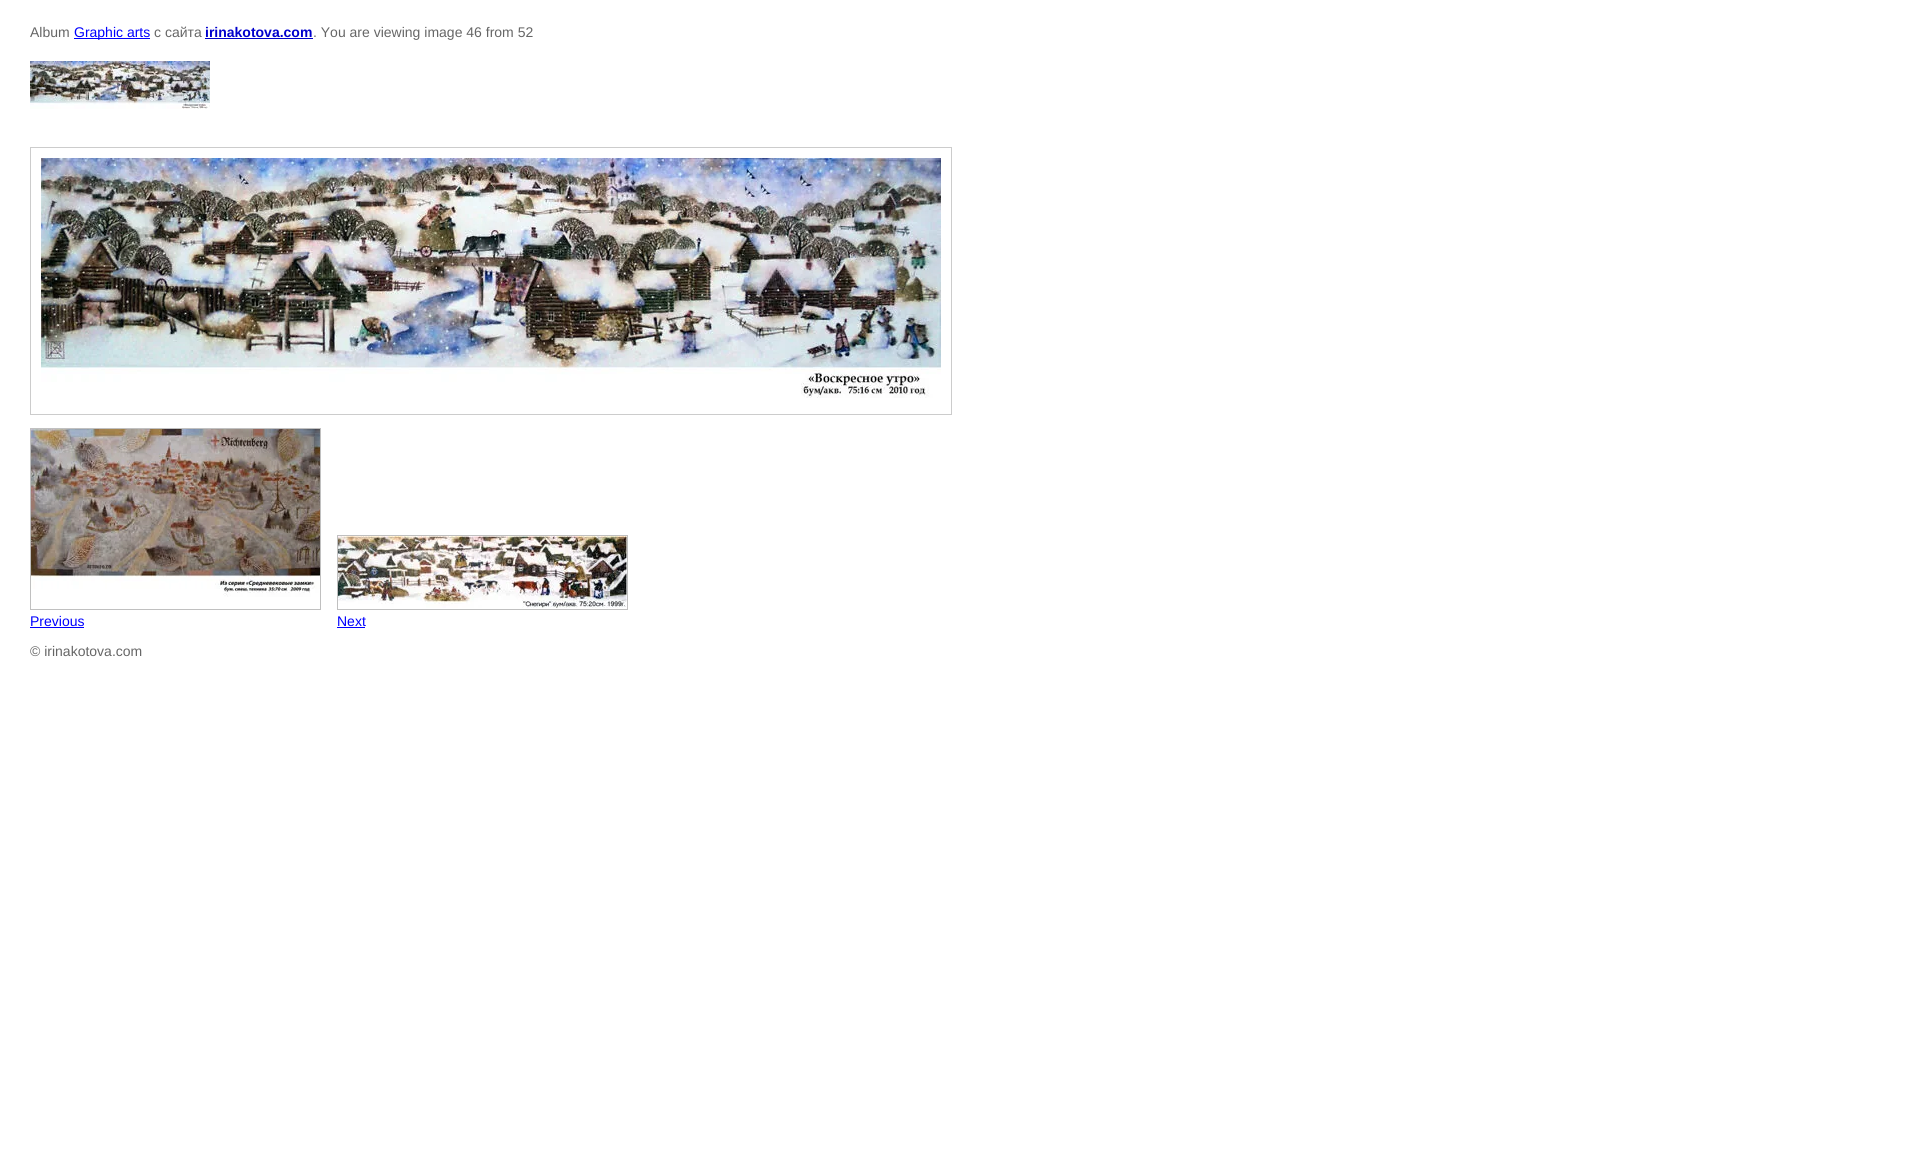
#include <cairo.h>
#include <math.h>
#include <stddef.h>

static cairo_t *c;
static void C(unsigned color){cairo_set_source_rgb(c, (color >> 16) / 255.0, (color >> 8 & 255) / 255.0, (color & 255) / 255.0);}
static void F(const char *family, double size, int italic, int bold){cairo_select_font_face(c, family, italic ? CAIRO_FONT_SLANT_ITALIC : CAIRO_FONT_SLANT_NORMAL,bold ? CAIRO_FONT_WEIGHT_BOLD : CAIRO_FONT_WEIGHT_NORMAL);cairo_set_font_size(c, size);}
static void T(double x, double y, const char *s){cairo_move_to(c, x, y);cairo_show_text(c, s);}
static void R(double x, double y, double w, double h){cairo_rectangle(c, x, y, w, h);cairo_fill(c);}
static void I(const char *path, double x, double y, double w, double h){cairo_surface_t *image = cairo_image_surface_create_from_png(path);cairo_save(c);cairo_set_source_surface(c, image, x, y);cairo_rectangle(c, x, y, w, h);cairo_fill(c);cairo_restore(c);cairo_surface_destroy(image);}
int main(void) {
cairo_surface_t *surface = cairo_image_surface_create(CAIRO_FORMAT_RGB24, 1929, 1159);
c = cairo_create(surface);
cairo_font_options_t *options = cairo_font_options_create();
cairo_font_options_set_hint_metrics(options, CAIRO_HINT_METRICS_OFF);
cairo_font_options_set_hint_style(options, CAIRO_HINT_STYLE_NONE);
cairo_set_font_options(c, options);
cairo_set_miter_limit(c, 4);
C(0xffffff);
cairo_paint(c);
F("Liberation Sans",14,0,0);
C(0x666666);
T(30,37,"Album");
C(0x0000ff);
R(74,38,76,1);
T(74,37,"Graphic arts");
C(0x666666);
T(154,37,"с сайта");
F("Liberation Sans",14,0,1);
C(0x0000cc);
T(205,37,"irinakotova.com");
R(205,38,108,1);
F("Liberation Sans",14,0,0);
C(0x666666);
T(313,37,". You are viewing image 46 from 52");
I("1.png",30,61,180,48);
cairo_rectangle(c,30.5,147.5,921,267);
C(0xcccccc);
cairo_set_line_width(c,1);
cairo_stroke(c);
I("2.png",41,158,900,240);
cairo_rectangle(c,30.5,428.5,290,181);
C(0xc0c0c0);
cairo_stroke(c);
I("3.png",31,429,289,168);
C(0x0000ff);
T(30,626,"Previous");
R(30,627,54,1);
cairo_rectangle(c,337.5,535.5,290,74);
C(0xc0c0c0);
cairo_stroke(c);
I("4.png",338,536,289,72);
C(0x0000ff);
T(337,626,"Next");
R(337,627,28,1);
C(0x666666);
T(30,656,"© irinakotova.com");
cairo_surface_write_to_png(surface, "o.png");
cairo_font_options_destroy(options);
cairo_destroy(c);
cairo_surface_destroy(surface);
return 0;
}
